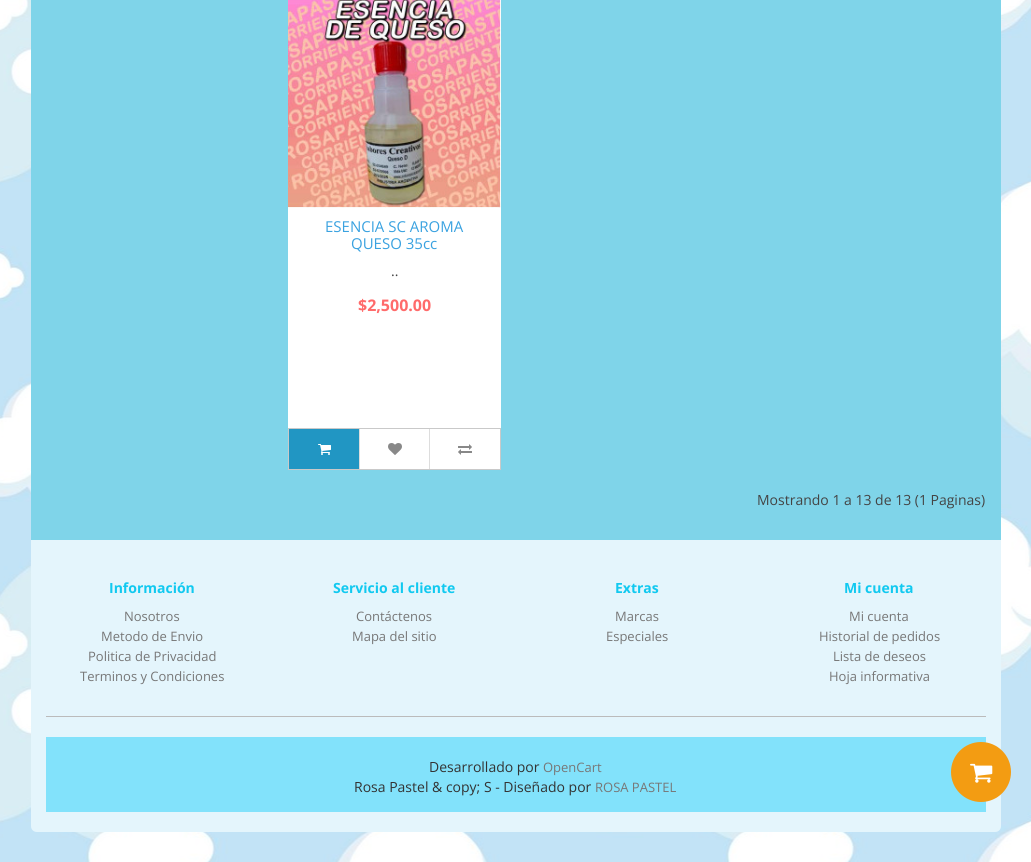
#include <cairo.h>
#include <math.h>
#include <stddef.h>

static cairo_t *c;
static void C(unsigned color){cairo_set_source_rgb(c, (color >> 16) / 255.0, (color >> 8 & 255) / 255.0, (color & 255) / 255.0);}
static void F(const char *family, double size, int italic, int bold){cairo_select_font_face(c, family, italic ? CAIRO_FONT_SLANT_ITALIC : CAIRO_FONT_SLANT_NORMAL,bold ? CAIRO_FONT_WEIGHT_BOLD : CAIRO_FONT_WEIGHT_NORMAL);cairo_set_font_size(c, size);}
static void T(double x, double y, const char *s){cairo_move_to(c, x, y);cairo_show_text(c, s);}
static void R(double x, double y, double w, double h){cairo_rectangle(c, x, y, w, h);cairo_fill(c);}
static void I(const char *path, double x, double y, double w, double h){cairo_surface_t *image = cairo_image_surface_create_from_png(path);cairo_save(c);cairo_set_source_surface(c, image, x, y);cairo_rectangle(c, x, y, w, h);cairo_fill(c);cairo_restore(c);cairo_surface_destroy(image);}
int main(void) {
cairo_surface_t *surface = cairo_image_surface_create(CAIRO_FORMAT_RGB24, 1031, 862);
c = cairo_create(surface);
cairo_font_options_t *options = cairo_font_options_create();
cairo_font_options_set_hint_metrics(options, CAIRO_HINT_METRICS_OFF);
cairo_font_options_set_hint_style(options, CAIRO_HINT_STYLE_NONE);
cairo_set_font_options(c, options);
cairo_set_miter_limit(c, 4);
C(0xffffff);
cairo_paint(c);
I("1.png",0,0,1031,862);
C(0x7fd4e9);
R(31,0,970,540);
C(0xffffff);
R(288,208,213,261);
I("2.png",288,0,213,208);
F("Open Sans",15,0,0);
C(0x3aa2e0);
T(325,232,"ESENCIA SC AROMA");
T(351,249,"QUESO 35cc");
F("Open Sans",14,0,0);
C(0x444444);
T(391,276,"..");
F("Open Sans",16,0,1);
C(0xff6b6b);
T(358,311,"$2,500.00");
cairo_rectangle(c,288.5,428.5,212,41);
C(0xc9c9c9);
cairo_set_line_width(c,1);
cairo_stroke(c);
C(0x2196c3);
R(289,429,70,40);
I("3.png",318,444,13,11);
C(0xdddddd);
R(359,429,1,40);
I("4.png",388,443,14,12);
R(429,429,1,40);
I("5.png",458,444,14,11);
F("Open Sans",14,0,0);
C(0x444444);
T(757,505,"Mostrando 1 a 13 de 13 (1 Paginas)");
C(0xe4f5fc);
cairo_new_path(c);
cairo_move_to(c,31,540);
cairo_line_to(c,1001,540);
cairo_line_to(c,1001,826);
cairo_curve_to(c,1001,829.5,998.5,832,995,832);
cairo_line_to(c,37,832);
cairo_curve_to(c,33.5,832,31,829.5,31,826);
cairo_close_path(c);
cairo_fill(c);
F("Open Sans",14,0,1);
C(0x11c9f0);
T(109,593,"Información");
F("Open Sans",13,0,0);
C(0x777777);
T(124,621,"Nosotros");
T(101,641,"Metodo de Envio");
T(88,661,"Politica de Privacidad");
T(80,681,"Terminos y Condiciones");
F("Open Sans",14,0,1);
C(0x11c9f0);
T(333,593,"Servicio al cliente");
F("Open Sans",13,0,0);
C(0x777777);
T(356,621,"Contáctenos");
T(352,641,"Mapa del sitio");
F("Open Sans",14,0,1);
C(0x11c9f0);
T(615,593,"Extras");
F("Open Sans",13,0,0);
C(0x777777);
T(615,621,"Marcas");
T(606,641,"Especiales");
F("Open Sans",14,0,1);
C(0x11c9f0);
T(844,593,"Mi cuenta");
F("Open Sans",13,0,0);
C(0x777777);
T(849,621,"Mi cuenta");
T(819,641,"Historial de pedidos");
T(833,661,"Lista de deseos");
T(829,681,"Hoja informativa");
C(0xbbbbbb);
R(46,716,940,1);
C(0x82e2fb);
R(46,737,940,75);
F("Open Sans",14,0,0);
C(0x333333);
T(429,772,"Desarrollado por");
F("Open Sans",13,0,0);
C(0x777777);
T(543,772,"OpenCart");
F("Open Sans",14,0,0);
C(0x333333);
T(354,792,"Rosa Pastel & copy; S - Diseñado por");
F("Open Sans",13,0,0);
C(0x777777);
T(595,792,"ROSA PASTEL");
C(0xf39c12);
cairo_new_path(c);
cairo_arc(c,981,772,30,0,2 * M_PI);
cairo_fill(c);
I("6.png",970,763,23,20);
cairo_surface_write_to_png(surface, "o.png");
cairo_font_options_destroy(options);
cairo_destroy(c);
cairo_surface_destroy(surface);
return 0;
}
